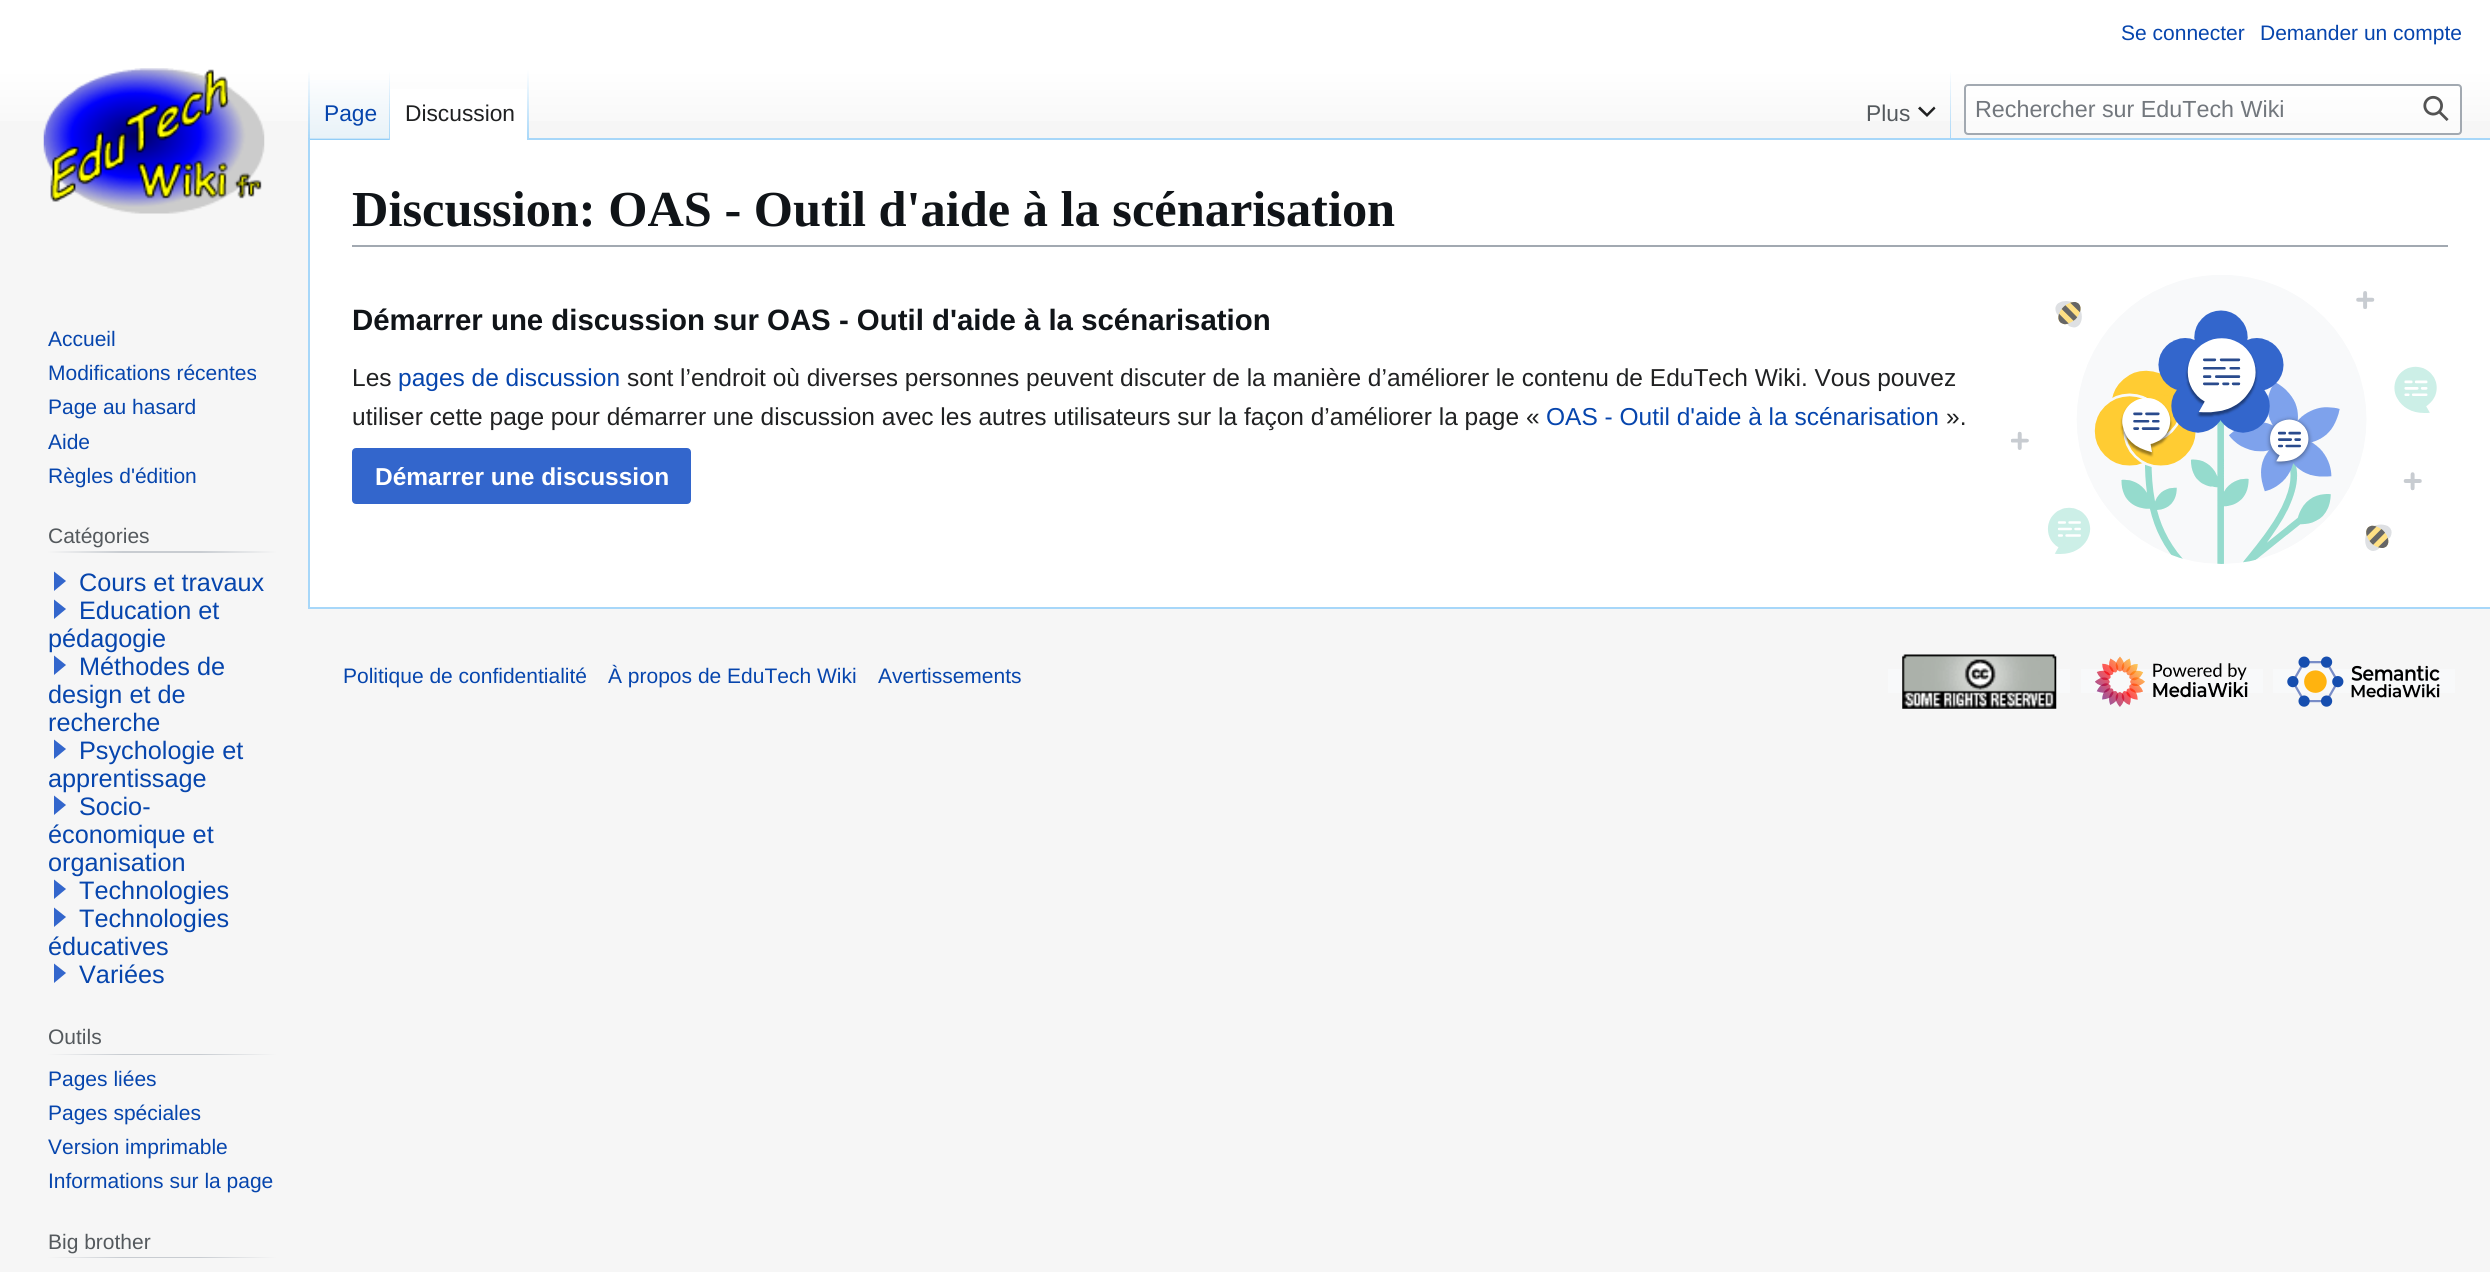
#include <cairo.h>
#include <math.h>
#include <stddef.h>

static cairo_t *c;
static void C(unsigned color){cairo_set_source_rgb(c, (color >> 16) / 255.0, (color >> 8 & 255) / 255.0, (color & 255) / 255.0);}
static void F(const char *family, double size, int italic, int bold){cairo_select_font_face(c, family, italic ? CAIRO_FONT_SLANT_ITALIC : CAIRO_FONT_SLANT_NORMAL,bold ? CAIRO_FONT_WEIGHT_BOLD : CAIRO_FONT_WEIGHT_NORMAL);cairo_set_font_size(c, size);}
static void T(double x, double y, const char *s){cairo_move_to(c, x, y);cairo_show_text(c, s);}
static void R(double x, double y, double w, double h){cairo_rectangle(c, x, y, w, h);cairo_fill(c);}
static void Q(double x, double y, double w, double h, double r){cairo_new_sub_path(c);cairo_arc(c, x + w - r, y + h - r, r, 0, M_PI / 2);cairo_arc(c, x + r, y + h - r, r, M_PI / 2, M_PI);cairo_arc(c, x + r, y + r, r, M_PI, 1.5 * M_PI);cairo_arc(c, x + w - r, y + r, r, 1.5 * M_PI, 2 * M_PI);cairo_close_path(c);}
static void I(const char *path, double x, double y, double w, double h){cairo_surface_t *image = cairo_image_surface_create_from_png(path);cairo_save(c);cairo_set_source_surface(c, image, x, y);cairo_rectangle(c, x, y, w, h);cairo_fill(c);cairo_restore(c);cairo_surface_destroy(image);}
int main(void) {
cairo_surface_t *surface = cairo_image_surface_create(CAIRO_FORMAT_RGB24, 2490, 1272);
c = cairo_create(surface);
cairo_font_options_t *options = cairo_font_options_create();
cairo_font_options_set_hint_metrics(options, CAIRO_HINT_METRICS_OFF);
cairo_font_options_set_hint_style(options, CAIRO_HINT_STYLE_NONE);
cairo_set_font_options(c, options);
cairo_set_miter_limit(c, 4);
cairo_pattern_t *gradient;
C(0xf6f6f6);
cairo_paint(c);
gradient = cairo_pattern_create_linear(1245,0,1245,140);
cairo_pattern_add_color_stop_rgba(gradient,.5,1,1,1,1);
cairo_pattern_add_color_stop_rgba(gradient,1,0.965,0.965,0.965,1);
cairo_set_source(c,gradient);
cairo_pattern_destroy(gradient);
R(0,0,2490,121);
F("Liberation Sans",21,0,0);
C(0x0645ad);
T(2121,40,"Se connecter");
T(2260,40,"Demander un compte");
C(0xa7d7f9);
R(308,607,2182,2);
R(308,138,2,471);
gradient = cairo_pattern_create_linear(309,70,309,140);
cairo_pattern_add_color_stop_rgba(gradient,0,0.655,0.843,0.976,0);
cairo_pattern_add_color_stop_rgba(gradient,1,0.655,0.843,0.976,1);
cairo_set_source(c,gradient);
cairo_pattern_destroy(gradient);
R(308,70,2,70);
gradient = cairo_pattern_create_linear(350,140,350,70);
cairo_pattern_add_color_stop_rgba(gradient,0,0.467,0.757,0.965,1);
cairo_pattern_add_color_stop_rgba(gradient,.03,0.91,0.949,0.973,1);
cairo_pattern_add_color_stop_rgba(gradient,1,1,1,1,1);
cairo_set_source(c,gradient);
cairo_pattern_destroy(gradient);
R(310,80,80,60);
gradient = cairo_pattern_create_linear(389,70,389,140);
cairo_pattern_add_color_stop_rgba(gradient,0,0.655,0.843,0.976,0);
cairo_pattern_add_color_stop_rgba(gradient,1,0.655,0.843,0.976,1);
cairo_set_source(c,gradient);
cairo_pattern_destroy(gradient);
R(389,70,1,70);
F("Liberation Sans",22.75,0,0);
C(0x0645ad);
T(324,121,"Page");
C(0xffffff);
R(390,89,137,51);
gradient = cairo_pattern_create_linear(528,70,528,140);
cairo_pattern_add_color_stop_rgba(gradient,0,1,1,1,1);
cairo_pattern_add_color_stop_rgba(gradient,1,0.655,0.843,0.976,1);
cairo_set_source(c,gradient);
cairo_pattern_destroy(gradient);
R(527,70,2,70);
C(0x202122);
T(405,121,"Discussion");
C(0xa7d7f9);
R(529,138,1961,2);
gradient = cairo_pattern_create_linear(1950,70,1950,140);
cairo_pattern_add_color_stop_rgba(gradient,0,0.655,0.843,0.976,0);
cairo_pattern_add_color_stop_rgba(gradient,1,0.655,0.843,0.976,1);
cairo_set_source(c,gradient);
cairo_pattern_destroy(gradient);
R(1950,70,1,70);
C(0x54595d);
T(1866,121,"Plus");
C(0x202122);
cairo_new_path(c);
cairo_move_to(c,1935.5,108.5);
cairo_line_to(c,1934,106.5);
cairo_line_to(c,1927,113.5);
cairo_line_to(c,1920,106.5);
cairo_line_to(c,1918,108.5);
cairo_line_to(c,1927,117);
cairo_close_path(c);
cairo_fill(c);
cairo_set_source_rgba(c,1,1,1,0.5);
Q(1965,85,496,49,3);
cairo_fill_preserve(c);
C(0xa2a9b1);
cairo_stroke(c);
F("Liberation Sans",23.3,0,0);
C(0x72777d);
T(1975,117,"Rechercher sur EduTech Wiki");
I("1.png",2423,95,26,26);
I("2.png",43,68,222,146);
F("Liberation Sans",21,0,0);
C(0x0645ad);
T(48,346,"Accueil");
T(48,380,"Modifications récentes");
T(48,414,"Page au hasard");
T(48,449,"Aide");
T(48,483,"Règles d'édition");
gradient = cairo_pattern_create_linear(47,552,277,552);
cairo_pattern_add_color_stop_rgba(gradient,0,0.965,0.965,0.965,1);
cairo_pattern_add_color_stop_rgba(gradient,.33,0.784,0.8,0.82,1);
cairo_pattern_add_color_stop_rgba(gradient,.66,0.784,0.8,0.82,1);
cairo_pattern_add_color_stop_rgba(gradient,1,0.965,0.965,0.965,1);
cairo_set_source(c,gradient);
cairo_pattern_destroy(gradient);
R(47,551,230,2);
C(0x54595d);
T(48,543,"Catégories");
C(0x3366cc);
cairo_new_path(c);
cairo_move_to(c,66,581);
cairo_line_to(c,54,591);
cairo_line_to(c,54,571.5);
cairo_close_path(c);
cairo_move_to(c,66,609);
cairo_line_to(c,54,619);
cairo_line_to(c,54,599.5);
cairo_close_path(c);
cairo_fill(c);
F("Liberation Sans",25.25,0,0);
C(0x0645ad);
T(79,591,"Cours et travaux");
T(79,619,"Education et");
T(48,647,"pédagogie");
C(0x3366cc);
cairo_new_path(c);
cairo_move_to(c,66,665);
cairo_line_to(c,54,675);
cairo_line_to(c,54,655.5);
cairo_close_path(c);
cairo_fill(c);
C(0x0645ad);
T(79,675,"Méthodes de");
T(48,703,"design et de");
T(48,731,"recherche");
C(0x3366cc);
cairo_new_path(c);
cairo_move_to(c,66,749);
cairo_line_to(c,54,759);
cairo_line_to(c,54,739.5);
cairo_close_path(c);
cairo_fill(c);
C(0x0645ad);
T(79,759,"Psychologie et");
T(48,787,"apprentissage");
C(0x3366cc);
cairo_new_path(c);
cairo_move_to(c,66,805);
cairo_line_to(c,54,815);
cairo_line_to(c,54,795.5);
cairo_close_path(c);
cairo_fill(c);
C(0x0645ad);
T(79,815,"Socio-");
T(48,843,"économique et");
T(48,871,"organisation");
C(0x3366cc);
cairo_new_path(c);
cairo_move_to(c,66,889);
cairo_line_to(c,54,899);
cairo_line_to(c,54,879.5);
cairo_close_path(c);
cairo_move_to(c,66,917);
cairo_line_to(c,54,927);
cairo_line_to(c,54,907.5);
cairo_close_path(c);
cairo_fill(c);
C(0x0645ad);
T(79,899,"Technologies");
T(79,927,"Technologies");
T(48,955,"éducatives");
C(0x3366cc);
cairo_new_path(c);
cairo_move_to(c,66,973);
cairo_line_to(c,54,983);
cairo_line_to(c,54,963.5);
cairo_close_path(c);
cairo_fill(c);
C(0x0645ad);
T(79,983,"Variées");
gradient = cairo_pattern_create_linear(47,1054,277,1054);
cairo_pattern_add_color_stop_rgba(gradient,0,0.965,0.965,0.965,1);
cairo_pattern_add_color_stop_rgba(gradient,.33,0.784,0.8,0.82,1);
cairo_pattern_add_color_stop_rgba(gradient,.66,0.784,0.8,0.82,1);
cairo_pattern_add_color_stop_rgba(gradient,1,0.965,0.965,0.965,1);
cairo_set_source(c,gradient);
cairo_pattern_destroy(gradient);
R(47,1054,230,1);
F("Liberation Sans",21,0,0);
C(0x54595d);
T(48,1044,"Outils");
C(0x0645ad);
T(48,1086,"Pages liées");
T(48,1120,"Pages spéciales");
T(48,1154,"Version imprimable");
T(48,1188,"Informations sur la page");
gradient = cairo_pattern_create_linear(47,1257,277,1257);
cairo_pattern_add_color_stop_rgba(gradient,0,0.965,0.965,0.965,1);
cairo_pattern_add_color_stop_rgba(gradient,.33,0.784,0.8,0.82,1);
cairo_pattern_add_color_stop_rgba(gradient,.66,0.784,0.8,0.82,1);
cairo_pattern_add_color_stop_rgba(gradient,1,0.965,0.965,0.965,1);
cairo_set_source(c,gradient);
cairo_pattern_destroy(gradient);
R(47,1257,230,1);
C(0x54595d);
T(48,1249,"Big brother");
C(0xffffff);
R(310,140,2180,467);
C(0xa2a9b1);
R(352,245,2096,2);
F("Liberation Serif",50.4,0,1);
C(0x101418);
T(352,226,"Discussion: OAS - Outil d'aide à la scénarisation");
F("Liberation Sans",29.4,0,1);
T(352,330,"Démarrer une discussion sur OAS - Outil d'aide à la scénarisation");
F("Liberation Sans",24.5,0,0);
C(0x202122);
T(352,386,"Les");
C(0x0645ad);
T(398,386,"pages de discussion");
C(0x202122);
T(627,386,"sont l’endroit où diverses personnes peuvent discuter de la manière d’améliorer le contenu de EduTech Wiki. Vous pouvez");
T(352,425,"utiliser cette page pour démarrer une discussion avec les autres utilisateurs sur la façon d’améliorer la page «");
C(0x0645ad);
T(1546,425,"OAS - Outil d'aide à la scénarisation");
C(0x202122);
T(1946,425,"».");
C(0x3366cc);
Q(353,449,337,54,3);
cairo_fill_preserve(c);
cairo_stroke(c);
F("Liberation Sans",24.5,0,1);
C(0xffffff);
T(375,485,"Démarrer une discussion");
I("3.png",2011,275,426,289);
F("Liberation Sans",21,0,0);
C(0x0645ad);
T(343,683,"Politique de confidentialité");
T(608,683,"À propos de EduTech Wiki");
T(878,683,"Avertissements");
C(0xf8f9fa);
R(1888,669,182,24);
I("4.png",1902,654,155,55);
R(2081,669,182,24);
I("5.png",2095,656,153,51);
R(2273,669,182,24);
I("6.png",2287,656,153,51);
cairo_surface_write_to_png(surface, "o.png");
cairo_font_options_destroy(options);
cairo_destroy(c);
cairo_surface_destroy(surface);
return 0;
}
